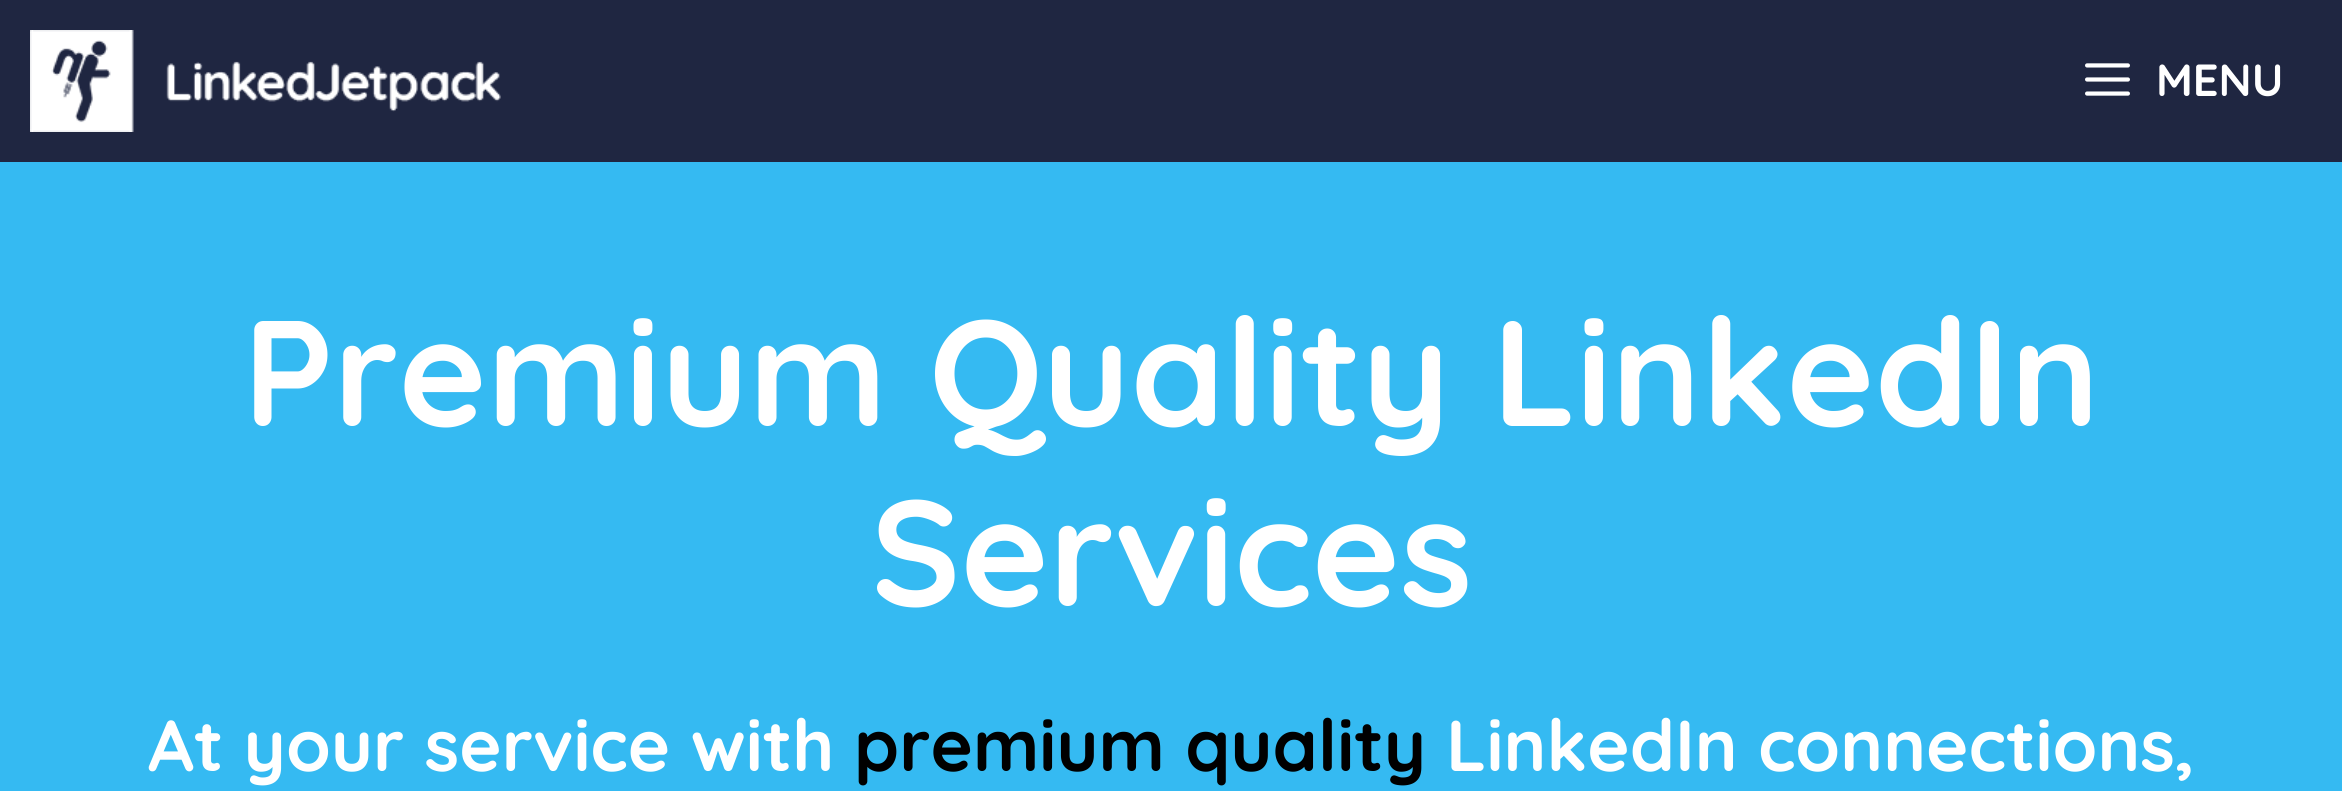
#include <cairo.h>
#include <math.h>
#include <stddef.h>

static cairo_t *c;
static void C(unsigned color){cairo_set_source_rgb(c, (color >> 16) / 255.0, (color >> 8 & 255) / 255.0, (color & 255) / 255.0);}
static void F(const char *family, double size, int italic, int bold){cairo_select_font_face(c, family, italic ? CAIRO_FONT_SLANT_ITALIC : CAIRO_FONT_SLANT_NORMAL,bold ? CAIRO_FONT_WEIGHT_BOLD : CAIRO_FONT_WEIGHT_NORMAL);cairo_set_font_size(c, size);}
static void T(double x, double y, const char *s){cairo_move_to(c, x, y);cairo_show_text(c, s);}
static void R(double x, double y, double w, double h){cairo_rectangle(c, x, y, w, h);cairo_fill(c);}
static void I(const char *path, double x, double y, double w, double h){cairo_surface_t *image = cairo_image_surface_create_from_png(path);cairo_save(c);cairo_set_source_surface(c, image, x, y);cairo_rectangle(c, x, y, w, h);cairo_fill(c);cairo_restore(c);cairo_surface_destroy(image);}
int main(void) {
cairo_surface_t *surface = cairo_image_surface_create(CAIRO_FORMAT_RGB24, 2342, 791);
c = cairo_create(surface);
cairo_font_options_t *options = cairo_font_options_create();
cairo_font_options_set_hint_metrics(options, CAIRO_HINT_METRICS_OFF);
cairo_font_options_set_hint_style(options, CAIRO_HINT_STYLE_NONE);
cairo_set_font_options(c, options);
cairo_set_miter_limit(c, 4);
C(0x1f2641);
cairo_paint(c);
I("1.png",30,30,471,102);
I("2.png",2085,63,45,33);
F("Quicksand",45,0,1);
C(0xffffff);
T(2156,96,"MENU");
C(0x35baf2);
R(0,162,2342,629);
F("Quicksand",150,0,1);
C(0xffffff);
T(243,426,"Premium Quality LinkedIn");
T(871,606,"Services");
F("Quicksand",72,0,1);
T(148,771,"At your service with");
C(0x000000);
T(854,771,"premium quality");
C(0xffffff);
T(1446,771,"LinkedIn connections,");
cairo_surface_write_to_png(surface, "o.png");
cairo_font_options_destroy(options);
cairo_destroy(c);
cairo_surface_destroy(surface);
return 0;
}
